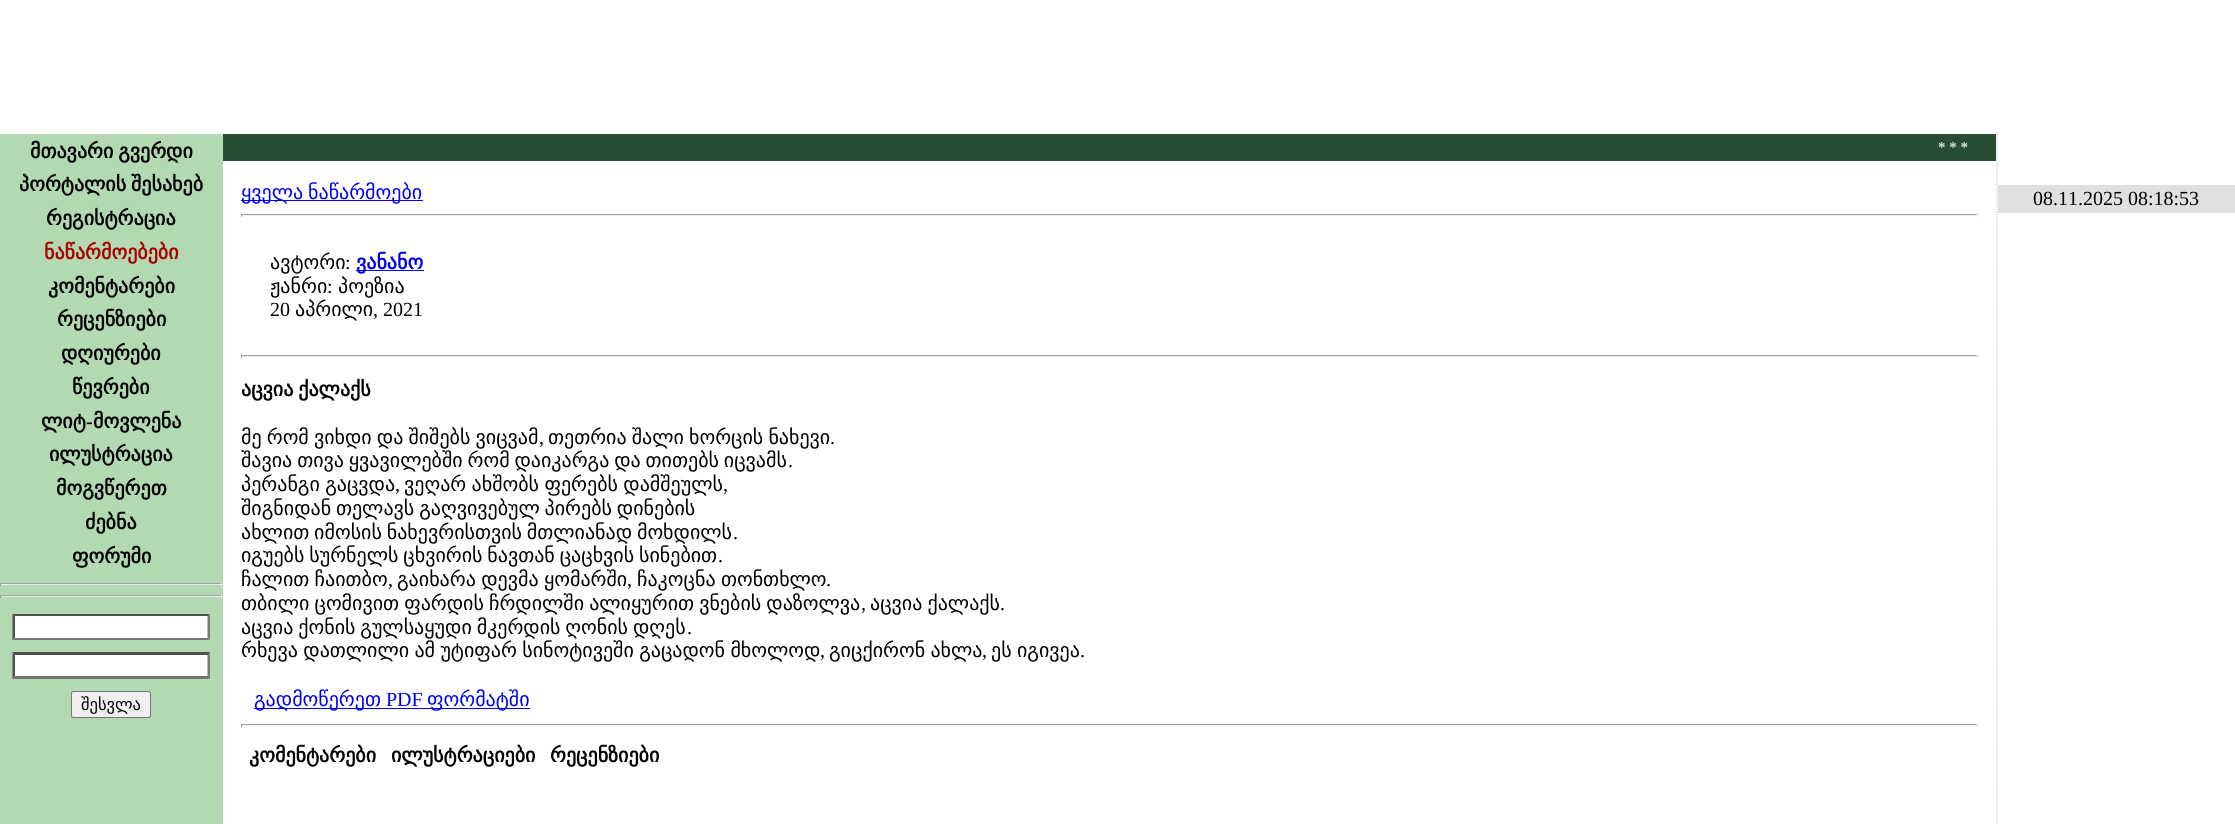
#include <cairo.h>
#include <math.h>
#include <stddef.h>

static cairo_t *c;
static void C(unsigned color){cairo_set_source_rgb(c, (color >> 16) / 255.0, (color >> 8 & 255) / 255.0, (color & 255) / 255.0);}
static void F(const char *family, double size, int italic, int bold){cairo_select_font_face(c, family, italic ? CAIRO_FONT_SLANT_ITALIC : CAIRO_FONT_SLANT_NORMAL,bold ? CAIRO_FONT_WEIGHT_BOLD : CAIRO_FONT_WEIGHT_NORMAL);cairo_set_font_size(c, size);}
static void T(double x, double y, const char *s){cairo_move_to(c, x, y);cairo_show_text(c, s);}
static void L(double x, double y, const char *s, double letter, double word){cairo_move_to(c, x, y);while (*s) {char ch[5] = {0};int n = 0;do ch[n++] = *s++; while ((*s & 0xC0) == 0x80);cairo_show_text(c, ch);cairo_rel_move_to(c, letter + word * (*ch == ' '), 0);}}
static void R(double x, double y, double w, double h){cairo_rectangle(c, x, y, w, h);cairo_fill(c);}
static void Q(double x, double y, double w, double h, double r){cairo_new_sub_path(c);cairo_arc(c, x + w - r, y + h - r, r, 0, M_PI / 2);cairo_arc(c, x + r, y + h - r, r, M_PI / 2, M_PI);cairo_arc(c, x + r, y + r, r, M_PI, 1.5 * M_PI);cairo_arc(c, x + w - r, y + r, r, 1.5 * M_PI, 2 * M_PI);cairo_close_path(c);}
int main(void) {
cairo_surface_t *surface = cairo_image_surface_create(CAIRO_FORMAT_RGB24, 2235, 824);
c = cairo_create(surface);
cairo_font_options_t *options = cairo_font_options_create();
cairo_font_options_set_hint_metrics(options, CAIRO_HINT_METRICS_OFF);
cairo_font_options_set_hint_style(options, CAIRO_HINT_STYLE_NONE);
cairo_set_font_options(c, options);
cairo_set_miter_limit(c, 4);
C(0xffffff);
cairo_paint(c);
C(0xb2d9b2);
R(0,134,223,690);
F("DejaVu Sans",20,0,1);
C(0x000000);
L(30,158,"მთავარი გვერდი",0,-1.5);
L(19,191,"პორტალის შესახებ",0,-1.5);
T(46,225,"რეგისტრაცია");
C(0xaa0000);
T(44,259,"ნაწარმოებები");
C(0x000000);
T(48,293,"კომენტარები");
T(57,326,"რეცენზიები");
T(61,360,"დღიურები");
T(72,394,"წევრები");
T(41,428,"ლიტ");
F("Liberation Serif",20,0,1);
T(86,428,"-");
F("DejaVu Sans",20,0,1);
T(93,428,"მოვლენა");
T(49,461,"ილუსტრაცია");
T(56,495,"მოგვწერეთ");
T(85,529,"ძებნა");
T(72,563,"ფორუმი");
C(0x9f9f9f);
R(0,583,223,1);
C(0xeeeeee);
R(221,583,1,3);
R(0,584,223,1);
C(0x9f9f9f);
R(0,583,1,3);
R(0,595,223,1);
C(0xeeeeee);
R(221,595,1,3);
R(0,596,223,1);
C(0x9f9f9f);
R(0,595,1,3);
C(0xffffff);
R(13,614,197,26);
C(0x4f4f4f);
cairo_new_path(c);
cairo_move_to(c,12,614);
cairo_line_to(c,210,614);
cairo_line_to(c,208,616);
cairo_line_to(c,15,616);
cairo_close_path(c);
cairo_fill(c);
C(0x767676);
cairo_new_path(c);
cairo_move_to(c,210,614);
cairo_line_to(c,210,640);
cairo_line_to(c,207.5,637.5);
cairo_line_to(c,207.5,616);
cairo_close_path(c);
cairo_fill(c);
cairo_new_path(c);
cairo_move_to(c,210,640);
cairo_line_to(c,12,640);
cairo_line_to(c,15,638);
cairo_line_to(c,208,638);
cairo_close_path(c);
cairo_fill(c);
C(0x4f4f4f);
cairo_new_path(c);
cairo_move_to(c,12.5,640);
cairo_line_to(c,12.5,614);
cairo_line_to(c,15,616);
cairo_line_to(c,15,637.5);
cairo_close_path(c);
cairo_fill(c);
C(0xffffff);
R(13,653,197,26);
C(0x4f4f4f);
cairo_new_path(c);
cairo_move_to(c,12,652);
cairo_line_to(c,210,652);
cairo_line_to(c,208,655);
cairo_line_to(c,15,655);
cairo_close_path(c);
cairo_fill(c);
C(0x767676);
cairo_new_path(c);
cairo_move_to(c,210,652.5);
cairo_line_to(c,210,679);
cairo_line_to(c,207.5,676);
cairo_line_to(c,207.5,655);
cairo_close_path(c);
cairo_fill(c);
cairo_new_path(c);
cairo_move_to(c,210,679);
cairo_line_to(c,12,679);
cairo_line_to(c,15,676);
cairo_line_to(c,208,676);
cairo_close_path(c);
cairo_fill(c);
C(0x4f4f4f);
cairo_new_path(c);
cairo_move_to(c,12.5,679);
cairo_line_to(c,12.5,652.5);
cairo_line_to(c,15,655);
cairo_line_to(c,15,676);
cairo_close_path(c);
cairo_fill(c);
C(0xefefef);
Q(71.5,691.5,79,26,2);
cairo_fill_preserve(c);
C(0x767676);
cairo_set_line_width(c,1);
cairo_stroke(c);
F("DejaVu Sans",16.5,0,0);
C(0x000000);
T(81,710,"შესვლა");
C(0x294d32);
R(223,134,1773,27);
F("Liberation Serif",15,0,1);
C(0xd3e7d8);
T(1938,152,"* * *");
C(0x0000ee);
R(241,200,182,1);
F("DejaVu Sans",20,0,0);
L(241,199,"ყველა ნაწარმოები",0,-1.5);
C(0x9f9f9f);
R(241,214,1737,1);
C(0xeeeeee);
R(1976,214,1,3);
R(241,215,1737,1);
C(0x9f9f9f);
R(241,214,1,3);
C(0x000000);
T(270,269,"ავტორი");
F("Liberation Serif",20,0,0);
T(345,269,":");
C(0x0000ee);
R(356,270,68,1);
F("DejaVu Sans",20,0,1);
T(356,269,"ვანანო");
F("DejaVu Sans",20,0,0);
C(0x000000);
T(270,293,"ჟანრი");
F("Liberation Serif",20,0,0);
T(327,293,":");
F("DejaVu Sans",20,0,0);
T(338,293,"პოეზია");
F("Liberation Serif",20,0,0);
T(270,316,"20");
F("DejaVu Sans",20,0,0);
T(295,316,"აპრილი");
F("Liberation Serif",20,0,0);
T(373,316,", 2021");
C(0x9f9f9f);
R(241,355,1737,1);
C(0xeeeeee);
R(1976,355,1,3);
R(241,356,1737,1);
C(0x9f9f9f);
R(241,355,1,3);
F("DejaVu Sans",20,0,1);
C(0x000000);
L(241,396,"აცვია ქალაქს",0,-1.5);
F("DejaVu Sans",20,0,0);
L(241,444,"მე რომ ვიხდი და შიშებს ვიცვამ",0,-1.25);
F("Liberation Serif",20,0,0);
T(539,444,",");
F("DejaVu Sans",20,0,0);
L(548,444,"თეთრია შალი ხორცის ნახევი",0,-1.25);
F("Liberation Serif",20,0,0);
T(830,444,".");
F("DejaVu Sans",20,0,0);
L(241,467,"შავია თივა ყვავილებში რომ დაიკარგა და თითებს იცვამს",0,-1.5);
F("Liberation Serif",20,0,0);
T(788,467,".");
F("DejaVu Sans",20,0,0);
L(241,491,"პერანგი გაცვდა",0,-1);
F("Liberation Serif",20,0,0);
T(395,491,",");
F("DejaVu Sans",20,0,0);
L(404,491,"ვეღარ ახშობს ფერებს დამშეულს",0,-1);
F("Liberation Serif",20,0,0);
T(723,491,",");
F("DejaVu Sans",20,0,0);
L(241,515,"შიგნიდან თელავს გაღვივებულ პირებს დინების",0,-1.5);
L(241,539,"ახლით იმოსის ნახევრისთვის მთლიანად მოხდილს",0,-1.5);
F("Liberation Serif",20,0,0);
T(733,539,".");
F("DejaVu Sans",20,0,0);
L(241,562,"იგუებს სურნელს ცხვირის ნავთან ცაცხვის სინებით",0,-1.5);
F("Liberation Serif",20,0,0);
T(718,562,".");
F("DejaVu Sans",20,0,0);
L(241,586,"ჩალით ჩაითბო",0,-1);
F("Liberation Serif",20,0,0);
T(388,586,",");
F("DejaVu Sans",20,0,0);
L(397,586,"გაიხარა დევმა ყომარში",0,-1);
F("Liberation Serif",20,0,0);
T(627,586,",");
F("DejaVu Sans",20,0,0);
L(637,586,"ჩაკოცნა თონთხლო",0,-1);
F("Liberation Serif",20,0,0);
T(826,586,".");
F("DejaVu Sans",20,0,0);
L(241,610,"თბილი ცომივით ფარდის ჩრდილში ალიყურით ვნების დაზოლვა",0,-1.25);
F("Liberation Serif",20,0,0);
T(861,610,",");
F("DejaVu Sans",20,0,0);
L(870,610,"აცვია ქალაქს",0,-1.25);
F("Liberation Serif",20,0,0);
T(1000,610,".");
F("DejaVu Sans",20,0,0);
L(241,634,"აცვია ქონის გულსაყუდი მკერდის ღონის დღეს",0,-1.5);
F("Liberation Serif",20,0,0);
T(687,634,".");
F("DejaVu Sans",20,0,0);
L(241,657,"რხევა დათლილი ამ უტიფარ სინოტივეში გაცადონ მხოლოდ",0,-1);
F("Liberation Serif",20,0,0);
T(820,657,",");
F("DejaVu Sans",20,0,0);
L(829,657,"გიცქირონ ახლა",0,-1);
F("Liberation Serif",20,0,0);
T(982,657,",");
F("DejaVu Sans",20,0,0);
L(991,657,"ეს იგივეა",0,-1);
F("Liberation Serif",20,0,0);
T(1080,657,".");
C(0x0000ee);
R(254,708,276,1);
F("DejaVu Sans",20,0,0);
T(254,706,"გადმოწერეთ");
F("Liberation Serif",20,0,0);
T(386,706,"PDF");
F("DejaVu Sans",20,0,0);
T(427,706,"ფორმატში");
C(0x9f9f9f);
R(241,724,1737,1);
C(0xeeeeee);
R(1976,724,1,3);
R(241,725,1737,1);
C(0x9f9f9f);
R(241,724,1,3);
F("DejaVu Sans",20,0,1);
C(0x000000);
T(249,762,"კომენტარები");
T(391,762,"ილუსტრაციები");
T(550,762,"რეცენზიები");
cairo_new_path(c);
cairo_move_to(c,1997,134);
cairo_line_to(c,1997,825);
C(0xcccccc);
cairo_set_line_width(c,1.2);
cairo_set_dash(c,(double[]){1.25,1.25},2,0);
cairo_stroke(c);
C(0xe0e0e0);
R(1998,185,237,28);
F("Liberation Serif",20,0,0);
C(0x000000);
T(2033,205,"08.11.2025 08:18:53");
cairo_surface_write_to_png(surface, "o.png");
cairo_font_options_destroy(options);
cairo_destroy(c);
cairo_surface_destroy(surface);
return 0;
}
